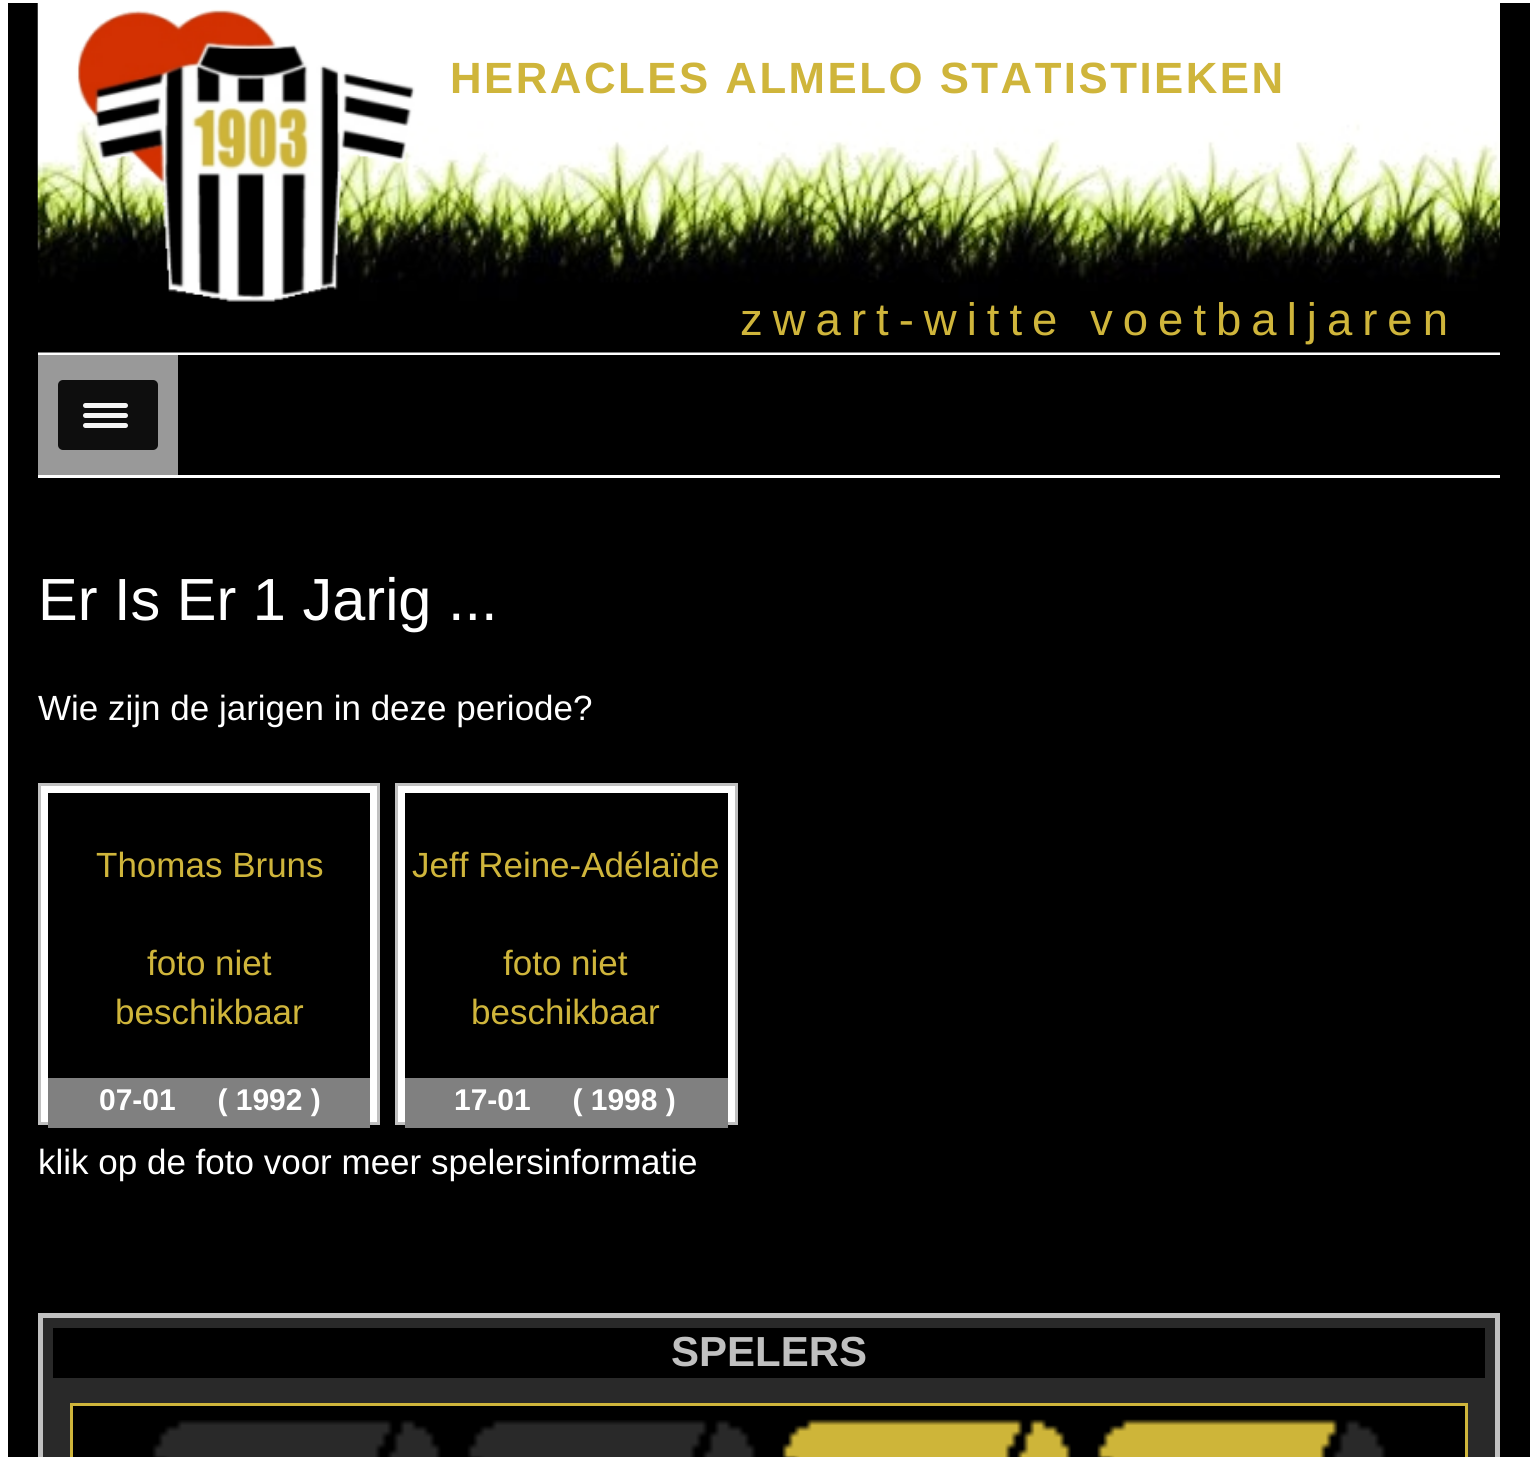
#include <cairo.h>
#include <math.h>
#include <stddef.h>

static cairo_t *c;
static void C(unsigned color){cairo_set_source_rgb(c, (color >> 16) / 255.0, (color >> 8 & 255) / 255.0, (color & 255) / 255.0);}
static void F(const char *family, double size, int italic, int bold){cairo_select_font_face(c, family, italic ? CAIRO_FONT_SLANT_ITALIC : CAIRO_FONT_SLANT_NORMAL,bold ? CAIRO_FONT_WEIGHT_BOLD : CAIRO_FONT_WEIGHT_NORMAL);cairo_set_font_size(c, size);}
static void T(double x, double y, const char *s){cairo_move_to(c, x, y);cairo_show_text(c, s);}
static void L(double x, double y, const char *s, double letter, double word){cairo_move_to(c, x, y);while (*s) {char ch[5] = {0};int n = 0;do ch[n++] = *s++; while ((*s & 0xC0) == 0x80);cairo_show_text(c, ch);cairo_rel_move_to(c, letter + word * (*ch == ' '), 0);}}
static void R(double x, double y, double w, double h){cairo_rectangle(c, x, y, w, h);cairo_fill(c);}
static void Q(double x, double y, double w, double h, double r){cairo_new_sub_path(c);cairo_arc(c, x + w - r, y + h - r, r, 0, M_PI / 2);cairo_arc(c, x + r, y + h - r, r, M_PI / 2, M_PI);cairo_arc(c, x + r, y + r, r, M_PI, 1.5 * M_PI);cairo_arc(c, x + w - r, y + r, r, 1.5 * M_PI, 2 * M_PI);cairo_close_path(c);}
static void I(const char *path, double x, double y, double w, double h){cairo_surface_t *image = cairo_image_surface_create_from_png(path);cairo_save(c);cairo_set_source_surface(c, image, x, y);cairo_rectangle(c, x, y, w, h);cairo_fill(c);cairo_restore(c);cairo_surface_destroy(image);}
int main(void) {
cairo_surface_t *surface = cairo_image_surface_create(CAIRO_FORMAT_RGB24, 1536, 1457);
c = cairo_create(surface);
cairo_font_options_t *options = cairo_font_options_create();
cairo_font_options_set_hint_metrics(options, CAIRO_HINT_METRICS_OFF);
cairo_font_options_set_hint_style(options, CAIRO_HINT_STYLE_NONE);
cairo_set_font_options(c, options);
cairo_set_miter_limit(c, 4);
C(0xffffff);
cairo_paint(c);
C(0x000000);
R(8,3,1522,1454);
C(0xffffff);
R(38,352,1462,3);
I("1.png",37,3,1463,350);
I("2.png",76,9,339,293);
F("Liberation Sans",43.75,0,1);
C(0xcfb53b);
L(450,93,"HERACLES ALMELO STATISTIEKEN",2.5,0);
F("Liberation Sans",45.5,0,0);
L(740,335,"zwart-witte voetbaljaren",10,0);
C(0xffffff);
R(38,475,1462,3);
C(0x999999);
R(38,355,140,120);
C(0x0e0e0e);
Q(58,380,100,70,5);
cairo_fill(c);
C(0xf5f5f5);
Q(83,403,45,5,2.5);
cairo_fill(c);
Q(83,413,45,5,2.5);
cairo_fill(c);
Q(83,423,45,5,2.5);
cairo_fill(c);
F("Liberation Sans",59.5,0,0);
C(0xffffff);
T(38,620,"Er Is Er 1 Jarig ...");
F("Liberation Sans",35,0,0);
T(38,720,"Wie zijn de jarigen in deze periode?");
cairo_rectangle(c,39.5,784.5,339,339);
cairo_fill_preserve(c);
C(0xc0c0c0);
cairo_set_line_width(c,3);
cairo_stroke(c);
C(0x000000);
R(48,793,322,285);
C(0xcfb53b);
T(96,877,"Thomas Bruns");
T(147,975,"foto niet");
T(115,1024,"beschikbaar");
C(0x808080);
R(48,1078,322,50);
F("Liberation Sans",30,0,1);
C(0xffffff);
T(99,1110,"07-01     ( 1992 )");
cairo_rectangle(c,396.5,784.5,340,339);
cairo_fill_preserve(c);
C(0xc0c0c0);
cairo_stroke(c);
C(0x000000);
R(405,793,323,285);
F("Liberation Sans",35,0,0);
C(0xcfb53b);
T(412,877,"Jeff Reine-Adélaïde");
T(503,975,"foto niet");
T(471,1024,"beschikbaar");
C(0x808080);
R(405,1078,323,50);
F("Liberation Sans",30,0,1);
C(0xffffff);
T(454,1110,"17-01     ( 1998 )");
F("Liberation Sans",35,0,0);
T(38,1174,"klik op de foto voor meer spelersinformatie");
C(0x292929);
cairo_rectangle(c,40.5,1315.5,1457,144);
cairo_fill_preserve(c);
C(0xc0c0c0);
cairo_set_line_width(c,5);
cairo_stroke(c);
C(0x000000);
R(53,1328,1432,50);
F("Liberation Sans",42,0,1);
C(0xc0c0c0);
T(671,1366,"SPELERS");
C(0x000000);
cairo_rectangle(c,71.5,1404.5,1395,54);
cairo_fill_preserve(c);
C(0xcfb53b);
cairo_set_line_width(c,3);
cairo_stroke(c);
I("3.png",152,1420,289,37);
I("3.png",467,1420,289,37);
I("4.png",782,1419,289,38);
I("5.png",1097,1419,289,38);
cairo_surface_write_to_png(surface, "o.png");
cairo_font_options_destroy(options);
cairo_destroy(c);
cairo_surface_destroy(surface);
return 0;
}
